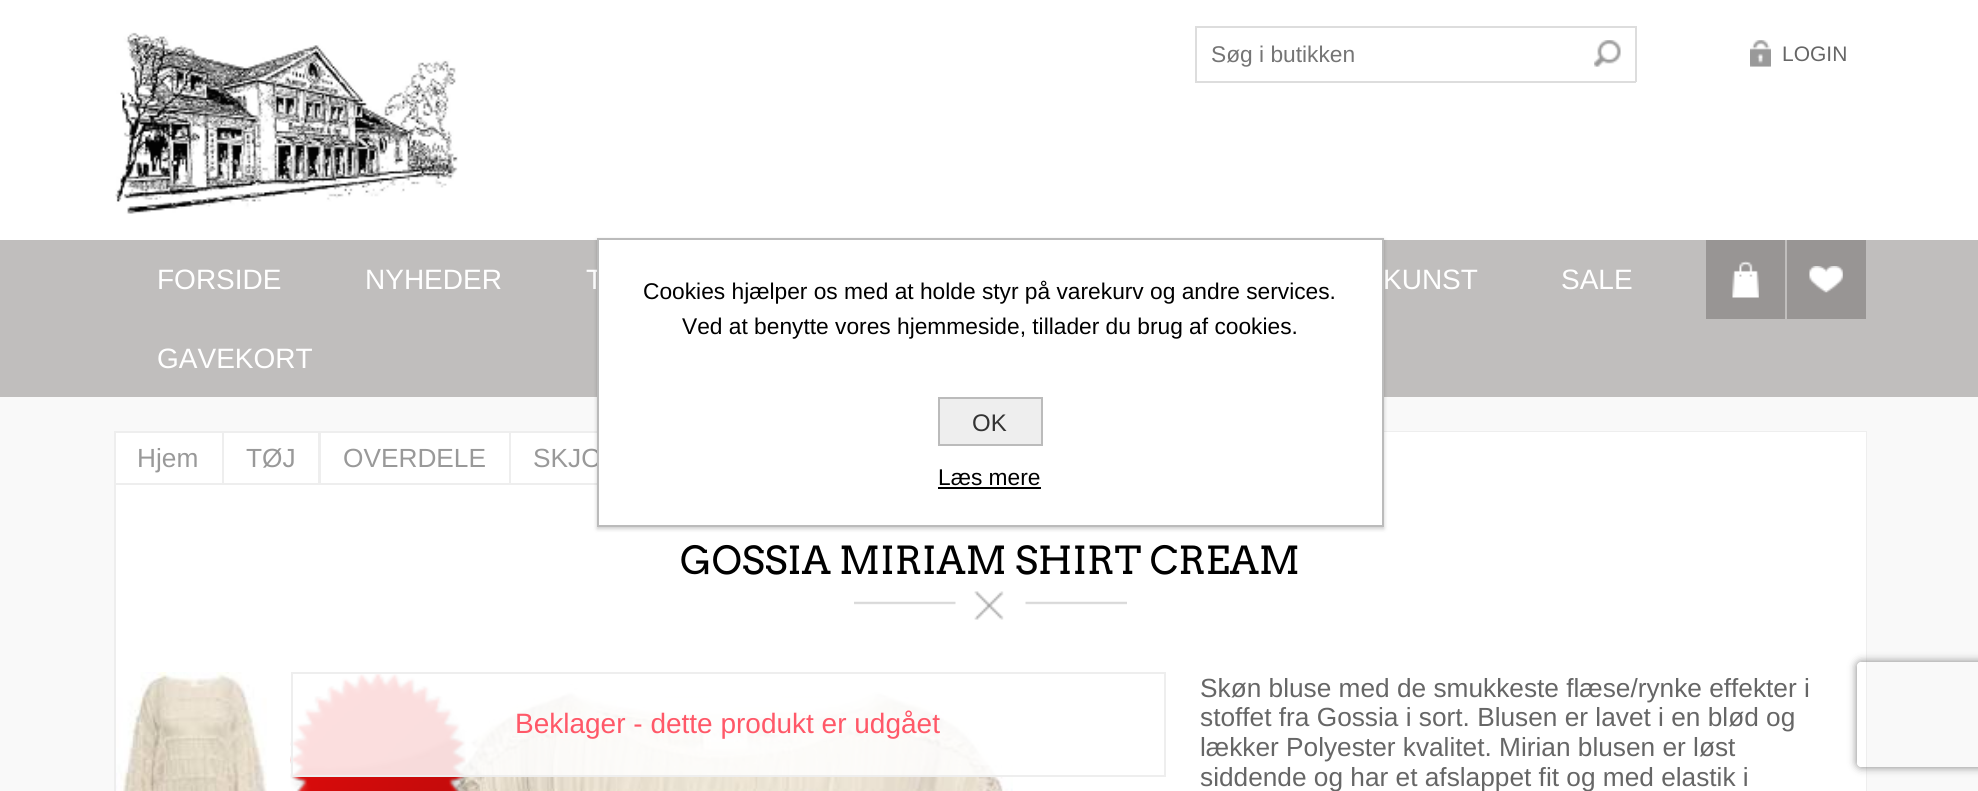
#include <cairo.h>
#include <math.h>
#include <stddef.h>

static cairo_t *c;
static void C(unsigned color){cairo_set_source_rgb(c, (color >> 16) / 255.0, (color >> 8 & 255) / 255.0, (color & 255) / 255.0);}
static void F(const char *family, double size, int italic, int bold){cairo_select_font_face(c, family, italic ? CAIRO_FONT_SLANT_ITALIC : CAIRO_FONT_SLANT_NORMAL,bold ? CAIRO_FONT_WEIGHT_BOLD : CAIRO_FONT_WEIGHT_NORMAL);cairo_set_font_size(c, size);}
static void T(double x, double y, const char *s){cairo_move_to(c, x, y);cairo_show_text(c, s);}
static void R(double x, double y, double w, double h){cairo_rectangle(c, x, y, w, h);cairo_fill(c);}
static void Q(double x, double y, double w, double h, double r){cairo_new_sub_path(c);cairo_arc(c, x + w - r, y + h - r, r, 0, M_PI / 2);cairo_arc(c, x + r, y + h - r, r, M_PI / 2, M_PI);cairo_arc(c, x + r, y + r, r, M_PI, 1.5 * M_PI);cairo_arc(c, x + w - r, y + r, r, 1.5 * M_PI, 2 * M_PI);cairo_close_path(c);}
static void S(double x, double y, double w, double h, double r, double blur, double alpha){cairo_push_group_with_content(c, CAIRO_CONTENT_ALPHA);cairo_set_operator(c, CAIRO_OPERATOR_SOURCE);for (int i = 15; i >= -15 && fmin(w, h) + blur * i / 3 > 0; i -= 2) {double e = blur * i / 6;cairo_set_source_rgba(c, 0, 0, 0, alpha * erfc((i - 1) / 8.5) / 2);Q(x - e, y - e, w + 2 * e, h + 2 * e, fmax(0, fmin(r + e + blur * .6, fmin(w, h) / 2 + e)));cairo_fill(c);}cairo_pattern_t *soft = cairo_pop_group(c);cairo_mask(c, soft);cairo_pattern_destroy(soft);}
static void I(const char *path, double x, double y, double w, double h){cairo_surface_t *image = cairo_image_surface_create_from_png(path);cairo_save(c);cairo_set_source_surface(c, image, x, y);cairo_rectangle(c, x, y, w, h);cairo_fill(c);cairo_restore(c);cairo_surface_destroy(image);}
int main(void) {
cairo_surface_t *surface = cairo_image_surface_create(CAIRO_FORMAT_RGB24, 1978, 791);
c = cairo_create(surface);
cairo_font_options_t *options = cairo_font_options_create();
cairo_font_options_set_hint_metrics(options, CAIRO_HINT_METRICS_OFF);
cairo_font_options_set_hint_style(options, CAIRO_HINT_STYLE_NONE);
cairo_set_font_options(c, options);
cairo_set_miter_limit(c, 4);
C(0xf9f9f9);
cairo_paint(c);
C(0xffffff);
R(0,0,1978,240);
I("1.png",115,32,343,182);
I("2.png",1594,40,27,27);
C(0xdddddd);
R(1195,26,441,2);
R(1635,26,2,56);
R(1195,81,441,2);
R(1195,26,2,56);
F("Liberation Sans",22.75,0,0);
C(0x757575);
T(1211,62,"Søg i butikken");
I("3.png",1750,40,21,27);
F("Liberation Sans",21,0,0);
C(0x666666);
T(1782,61,"LOGIN");
C(0xc0bebd);
R(0,240,1978,157);
F("Liberation Sans",28,0,0);
C(0xffffff);
T(157,289,"FORSIDE");
T(365,289,"NYHEDER");
T(586,289,"T");
T(1383,289,"KUNST");
T(1561,289,"SALE");
T(157,368,"GAVEKORT");
C(0x989594);
R(1706,240,79,79);
I("4.png",1732,261,27,37);
R(1787,240,79,79);
I("5.png",1809,266,34,27);
cairo_rectangle(c,115,432,1751,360);
C(0xeeeeee);
cairo_stroke(c);
C(0xffffff);
R(116,432,1750,359);
cairo_save(c);
cairo_rectangle(c,116,432,1750,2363);
cairo_clip(c);
cairo_rectangle(c,115,432,108,52);
C(0xeeeeee);
cairo_stroke(c);
cairo_restore(c);
F("Liberation Sans",26.25,0,0);
C(0x999999);
T(137,467,"Hjem");
cairo_save(c);
cairo_rectangle(c,116,432,1750,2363);
cairo_clip(c);
cairo_rectangle(c,223,432,96,52);
C(0xeeeeee);
cairo_stroke(c);
cairo_restore(c);
T(246,467,"TØJ");
cairo_save(c);
cairo_rectangle(c,116,432,1750,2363);
cairo_clip(c);
cairo_rectangle(c,320,432,190,52);
C(0xeeeeee);
cairo_stroke(c);
cairo_restore(c);
T(343,467,"OVERDELE");
cairo_save(c);
cairo_rectangle(c,116,432,1750,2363);
cairo_clip(c);
cairo_rectangle(c,510,432,187,52);
C(0xeeeeee);
cairo_stroke(c);
cairo_restore(c);
T(533,467,"SKJO");
I("6.png",854,591,273,29);
F("Arvo",38.5,0,0);
C(0x000000);
T(680,574,"GOSSIA MIRIAM SHIRT CREAM");
I("7.png",116,672,151,119);
I("9.png",445,684,568,107);
I("8.png",290,674,176,117);
cairo_set_source_rgba(c,1,1,1,0.85);
R(293,674,720,101);
cairo_rectangle(c,292,673,873,103);
C(0xeeeeee);
cairo_stroke(c);
F("Liberation Sans",28,0,0);
C(0xff5868);
T(515,733,"Beklager - dette produkt er udgået");
F("Liberation Sans",26.25,0,0);
C(0x666666);
T(1200,697,"Skøn bluse med de smukkeste flæse/rynke effekter i");
T(1200,726,"stoffet fra Gossia i sort. Blusen er lavet i en blød og");
T(1200,756,"lækker Polyester kvalitet. Mirian blusen er løst");
T(1200,786,"siddende og har et afslappet fit og med elastik i");
C(0x000000);
S(597,240,787,289,0,2,.2);
C(0xffffff);
cairo_rectangle(c,598,239,785,287);
cairo_fill_preserve(c);
C(0xbbbbbb);
cairo_stroke(c);
F("Liberation Sans",22.75,0,0);
C(0x000000);
T(643,299,"Cookies hjælper os med at holde styr på varekurv og andre services.");
T(682,334,"Ved at benytte vores hjemmeside, tillader du brug af cookies.");
C(0xeeeeee);
cairo_rectangle(c,939,398,103,47);
cairo_fill_preserve(c);
C(0xbbbbbb);
cairo_stroke(c);
F("Liberation Sans",24,0,0);
C(0x333333);
T(972,431,"OK");
F("Liberation Sans",22.75,0,0);
C(0x000000);
T(938,485,"Læs mere");
R(938,487,103,2);
cairo_save(c);
cairo_set_fill_rule(c,CAIRO_FILL_RULE_EVEN_ODD);
cairo_new_path(c);
cairo_move_to(c,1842,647);
cairo_line_to(c,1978,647);
cairo_line_to(c,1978,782);
cairo_line_to(c,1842,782);
cairo_close_path(c);
cairo_move_to(c,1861,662);
cairo_line_to(c,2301,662);
cairo_curve_to(c,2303,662,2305,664,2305,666);
cairo_line_to(c,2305,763);
cairo_curve_to(c,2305,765,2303,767,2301,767);
cairo_line_to(c,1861,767);
cairo_curve_to(c,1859,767,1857,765,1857,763);
cairo_line_to(c,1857,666);
cairo_curve_to(c,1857,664,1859,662,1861,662);
cairo_close_path(c);
cairo_clip(c);
C(0x808080);
S(1857,662,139,105,4,4.5,1);
cairo_restore(c);
cairo_surface_write_to_png(surface, "o.png");
cairo_font_options_destroy(options);
cairo_destroy(c);
cairo_surface_destroy(surface);
return 0;
}
